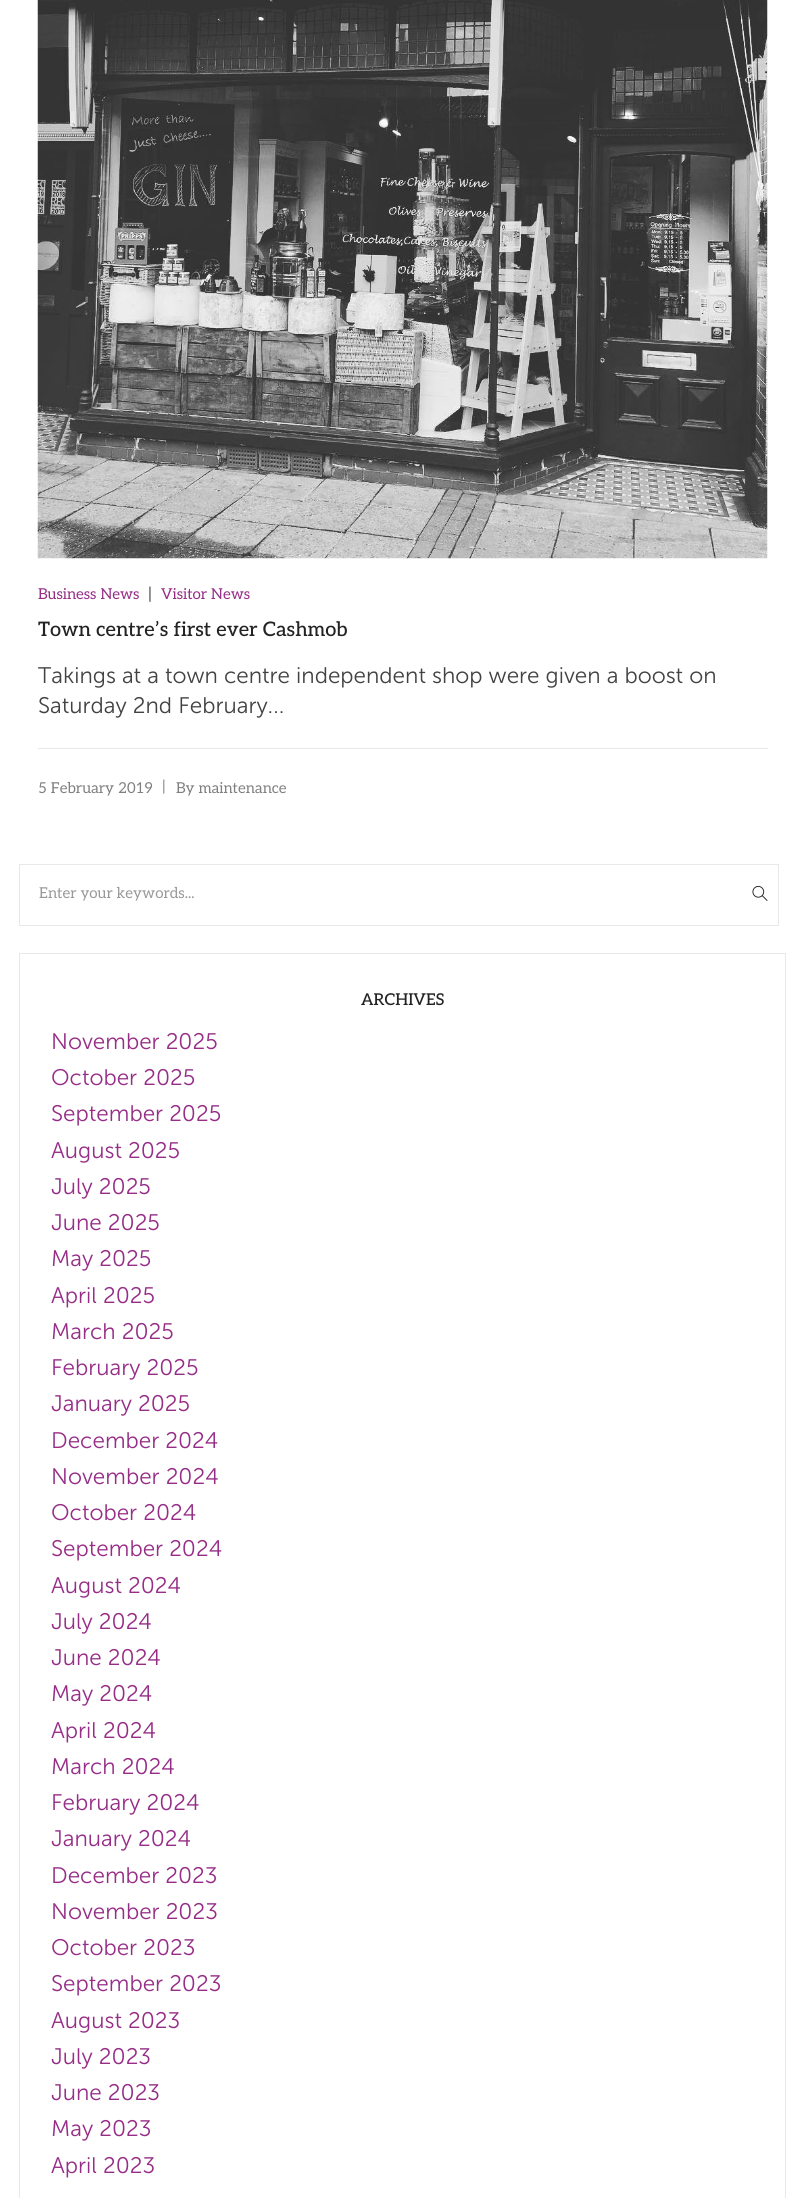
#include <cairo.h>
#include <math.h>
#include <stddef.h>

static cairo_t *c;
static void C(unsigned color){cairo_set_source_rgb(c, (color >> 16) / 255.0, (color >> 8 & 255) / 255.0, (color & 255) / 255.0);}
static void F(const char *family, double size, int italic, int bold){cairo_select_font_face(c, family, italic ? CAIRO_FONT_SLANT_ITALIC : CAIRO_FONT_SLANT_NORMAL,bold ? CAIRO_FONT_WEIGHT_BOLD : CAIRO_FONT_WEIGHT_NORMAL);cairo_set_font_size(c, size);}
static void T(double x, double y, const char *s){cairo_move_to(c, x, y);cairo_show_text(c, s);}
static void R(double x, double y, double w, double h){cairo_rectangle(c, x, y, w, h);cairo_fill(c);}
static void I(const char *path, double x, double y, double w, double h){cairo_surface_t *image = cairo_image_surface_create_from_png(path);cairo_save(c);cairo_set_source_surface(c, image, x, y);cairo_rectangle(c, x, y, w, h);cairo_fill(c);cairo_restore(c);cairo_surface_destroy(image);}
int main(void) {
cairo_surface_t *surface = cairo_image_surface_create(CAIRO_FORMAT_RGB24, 804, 2198);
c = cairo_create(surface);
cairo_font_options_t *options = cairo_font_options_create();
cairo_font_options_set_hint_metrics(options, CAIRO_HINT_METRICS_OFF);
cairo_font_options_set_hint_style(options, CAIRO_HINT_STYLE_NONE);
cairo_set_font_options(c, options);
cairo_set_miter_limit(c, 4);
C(0xffffff);
cairo_paint(c);
I("1.png",37,0,731,559);
F("Aleo",15,0,0);
C(0x962d87);
T(38,599,"Business News");
F("Aleo",16.25,0,0);
C(0x424242);
T(148,599,"|");
F("Aleo",15,0,0);
C(0x962d87);
T(161,599,"Visitor News");
F("Aleo Medium",20,0,0);
C(0x232323);
T(38,636,"Town centre’s first ever Cashmob");
F("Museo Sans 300 Light",22.5,0,0);
C(0x424242);
T(38,683,"Takings at a town centre independent shop were given a boost on");
T(38,713,"Saturday 2nd February...");
C(0xe8e8e8);
R(38,748,730,1);
F("Aleo",15,0,0);
C(0x808080);
T(38,793,"5 February 2019");
T(162,791,"|");
T(176,793,"By maintenance");
cairo_rectangle(c,19.5,864.5,759,61);
C(0xe8e8e8);
cairo_set_line_width(c,1);
cairo_stroke(c);
C(0x999999);
T(39,898,"Enter your keywords...");
I("2.png",752,885,16,16);
cairo_rectangle(c,19.5,953.5,766,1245);
C(0xe8e8e8);
cairo_stroke(c);
F("Aleo Medium",16.25,0,0);
C(0x232323);
T(361,1005,"ARCHIVES");
F("Museo Sans 300 Light",22.5,0,0);
C(0x962d87);
T(51,1049,"November 2025");
T(51,1085,"October 2025");
T(51,1121,"September 2025");
T(51,1158,"August 2025");
T(51,1194,"July 2025");
T(51,1230,"June 2025");
T(51,1266,"May 2025");
T(51,1303,"April 2025");
T(51,1339,"March 2025");
T(51,1375,"February 2025");
T(51,1411,"January 2025");
T(51,1448,"December 2024");
T(51,1484,"November 2024");
T(51,1520,"October 2024");
T(51,1556,"September 2024");
T(51,1593,"August 2024");
T(51,1629,"July 2024");
T(51,1665,"June 2024");
T(51,1701,"May 2024");
T(51,1738,"April 2024");
T(51,1774,"March 2024");
T(51,1810,"February 2024");
T(51,1846,"January 2024");
T(51,1883,"December 2023");
T(51,1919,"November 2023");
T(51,1955,"October 2023");
T(51,1991,"September 2023");
T(51,2028,"August 2023");
T(51,2064,"July 2023");
T(51,2100,"June 2023");
T(51,2136,"May 2023");
T(51,2173,"April 2023");
cairo_surface_write_to_png(surface, "o.png");
cairo_font_options_destroy(options);
cairo_destroy(c);
cairo_surface_destroy(surface);
return 0;
}
